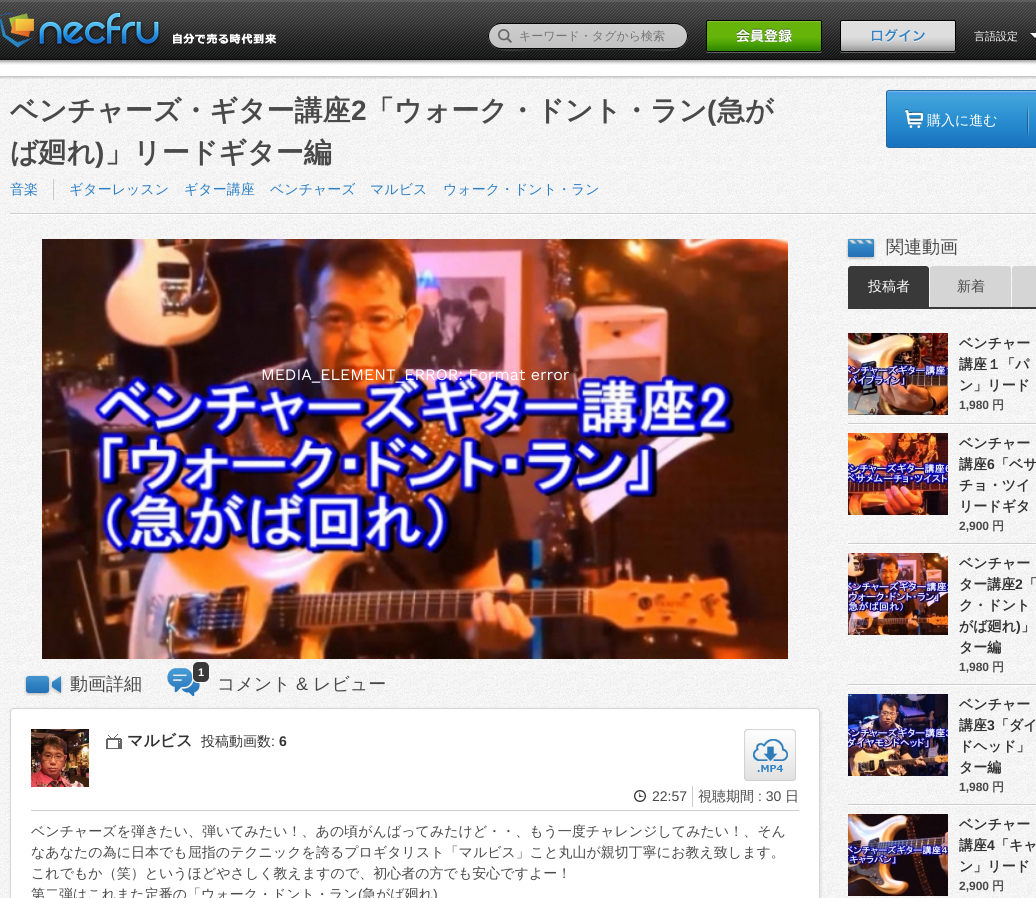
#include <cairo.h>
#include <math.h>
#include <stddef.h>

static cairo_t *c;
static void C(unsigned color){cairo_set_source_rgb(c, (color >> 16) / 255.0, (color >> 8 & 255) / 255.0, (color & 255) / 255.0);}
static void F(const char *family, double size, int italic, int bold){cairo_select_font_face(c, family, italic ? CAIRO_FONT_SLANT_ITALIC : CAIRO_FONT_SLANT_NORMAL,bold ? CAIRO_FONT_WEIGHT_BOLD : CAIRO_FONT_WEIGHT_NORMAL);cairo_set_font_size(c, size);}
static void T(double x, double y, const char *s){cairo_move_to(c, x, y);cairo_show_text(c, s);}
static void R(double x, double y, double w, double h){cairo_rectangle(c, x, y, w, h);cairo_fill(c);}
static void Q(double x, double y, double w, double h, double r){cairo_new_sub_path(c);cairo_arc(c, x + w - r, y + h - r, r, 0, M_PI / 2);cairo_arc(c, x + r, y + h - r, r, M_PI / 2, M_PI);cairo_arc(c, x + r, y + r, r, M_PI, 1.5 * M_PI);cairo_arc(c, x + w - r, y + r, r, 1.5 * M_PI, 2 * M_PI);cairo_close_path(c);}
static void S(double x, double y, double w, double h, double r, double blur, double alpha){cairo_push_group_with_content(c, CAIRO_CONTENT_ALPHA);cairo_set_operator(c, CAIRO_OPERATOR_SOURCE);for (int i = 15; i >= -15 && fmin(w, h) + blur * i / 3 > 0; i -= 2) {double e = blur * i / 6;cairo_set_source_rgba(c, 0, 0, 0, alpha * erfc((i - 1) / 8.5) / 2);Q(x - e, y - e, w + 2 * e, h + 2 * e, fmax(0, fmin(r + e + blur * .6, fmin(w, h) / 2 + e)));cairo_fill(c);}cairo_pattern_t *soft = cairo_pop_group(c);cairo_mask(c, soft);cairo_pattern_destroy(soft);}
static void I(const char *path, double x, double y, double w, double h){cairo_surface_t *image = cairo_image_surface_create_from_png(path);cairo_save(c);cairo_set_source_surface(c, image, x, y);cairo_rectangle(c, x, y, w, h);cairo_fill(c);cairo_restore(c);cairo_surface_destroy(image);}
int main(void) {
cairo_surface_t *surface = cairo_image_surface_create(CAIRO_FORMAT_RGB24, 1036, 898);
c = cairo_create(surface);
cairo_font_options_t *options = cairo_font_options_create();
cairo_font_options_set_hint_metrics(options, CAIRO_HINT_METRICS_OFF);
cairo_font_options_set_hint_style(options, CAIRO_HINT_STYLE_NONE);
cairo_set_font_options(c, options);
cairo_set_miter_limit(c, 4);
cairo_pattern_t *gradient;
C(0xffffff);
cairo_paint(c);
I("8.png",0,60,1036,838);
I("7.png",0,60,1036,19);
I("1.png",0,0,1036,65);
I("2.png",0,12,276,36);
cairo_set_source_rgba(c,1,1,1,0.1);
cairo_new_path(c);
cairo_move_to(c,488,36);
cairo_curve_to(c,487,57,522,50,530,50);
cairo_line_to(c,646,50);
cairo_curve_to(c,654,50,689,57,688,36);
cairo_curve_to(c,688,43,682,49,675,49);
cairo_line_to(c,501,49);
cairo_curve_to(c,494,49,488,43,488,36);
cairo_close_path(c);
cairo_fill(c);
cairo_save(c);
Q(488,23,200,26,13);
cairo_clip(c);
gradient = cairo_pattern_create_linear(489,48,489,24);
cairo_pattern_add_color_stop_rgba(gradient,0,0.761,0.761,0.761,1);
cairo_pattern_add_color_stop_rgba(gradient,1,0.808,0.808,0.808,1);
cairo_set_source(c,gradient);
cairo_pattern_destroy(gradient);
R(488,24,200,24);
cairo_restore(c);
Q(488.5,23.5,199,25,12.5);
C(0x000000);
cairo_set_line_width(c,1);
cairo_stroke(c);
I("3.png",498,29,14,14);
F("WenQuanYi Zen Hei Medium",12,0,0);
C(0x757575);
T(519,40,"キーワード・タグから検索");
I("4.png",706,20,116,33);
I("5.png",840,20,116,33);
I("6.png",1030,33,6,6);
F("WenQuanYi Zen Hei Medium",11,0,0);
C(0xffffff);
T(974,40,"言語設定");
F("WenQuanYi Zen Hei",28,0,1);
C(0x494949);
T(10,120,"ベンチャーズ・ギター講座");
F("Liberation Sans",28,0,1);
T(351,120,"2");
F("WenQuanYi Zen Hei",28,0,1);
T(366,120,"「ウォーク・ドント・ラン");
F("Liberation Sans",28,0,1);
T(707,120,"(");
F("WenQuanYi Zen Hei",28,0,1);
T(717,120,"急が");
T(10,162,"ば廻れ");
F("Liberation Sans",28,0,1);
T(95,162,")");
F("WenQuanYi Zen Hei",28,0,1);
T(105,162,"」リードギター編");
C(0xcccccc);
R(53,179,1,21);
F("WenQuanYi Zen Hei Medium",14,0,0);
C(0x2b7fc5);
T(10,194,"音楽");
T(69,194,"ギターレッスン");
T(184,194,"ギター講座");
T(270,194,"ベンチャーズ");
T(370,194,"マルビス");
T(443,194,"ウォーク・ドント・ラン");
cairo_save(c);
Q(886,90,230,58,3);
cairo_clip(c);
gradient = cairo_pattern_create_linear(1001,91,1001,147);
cairo_pattern_add_color_stop_rgba(gradient,0,0.286,0.608,0.918,1);
cairo_pattern_add_color_stop_rgba(gradient,.01,0.467,0.745,0.898,1);
cairo_pattern_add_color_stop_rgba(gradient,.03,0.286,0.608,0.918,1);
cairo_pattern_add_color_stop_rgba(gradient,.1,0.263,0.639,0.855,1);
cairo_pattern_add_color_stop_rgba(gradient,.52,0.157,0.557,0.816,1);
cairo_pattern_add_color_stop_rgba(gradient,1,0.094,0.443,0.745,1);
cairo_set_source(c,gradient);
cairo_pattern_destroy(gradient);
R(886,91,150,56);
cairo_restore(c);
Q(886.5,90.5,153,57,2.5);
C(0x2368a0);
cairo_stroke(c);
I("9.png",905,109,18,19);
C(0xffffff);
T(927,125,"購入に進む");
I("10.png",1027,106,2,31);
I("11.png",10,213,1026,2);
I("12.png",42,239,746,420);
F("Work Sans",16,0,0);
T(261,380,"MEDIA_ELEMENT_ERROR: Format error");
I("13.png",24,675,39,21);
F("WenQuanYi Zen Hei Medium",18,0,0);
C(0x494949);
T(70,690,"動画詳細");
I("14.png",167,668,33,28);
C(0x393939);
Q(192.5,661.5,17,21,5.5);
cairo_fill_preserve(c);
C(0xffffff);
cairo_stroke(c);
F("Liberation Sans",11,0,1);
T(198,676,"1");
F("WenQuanYi Zen Hei Medium",18,0,0);
C(0x494949);
T(217,690,"コメント");
F("Liberation Sans",18,0,0);
T(296,690,"&");
F("WenQuanYi Zen Hei Medium",18,0,0);
T(313,690,"レビュー");
C(0x000000);
S(11,709,810,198,4,1.5,.1);
C(0xffffff);
Q(10.5,708.5,809,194,3.5);
cairo_fill_preserve(c);
C(0xd7d7d7);
cairo_stroke(c);
C(0xcccccc);
R(31,810,768,1);
I("15.png",31,729,58,58);
I("16.png",106,734,16,15);
F("WenQuanYi Zen Hei",16,0,1);
C(0x333333);
T(127,746,"マルビス");
F("WenQuanYi Zen Hei Medium",14,0,0);
T(201,746,"投稿動画数");
F("Liberation Sans",14,0,0);
T(271,746,":");
F("Liberation Sans",14,0,1);
T(279,746,"6");
I("17.png",744,729,52,52);
I("18.png",634,790,12,12);
C(0xcccccc);
R(692,786,1,21);
F("Liberation Sans",14,0,0);
C(0x494949);
T(652,801,"22:57");
F("WenQuanYi Zen Hei Medium",14,0,0);
T(698,801,"視聴期間");
F("Liberation Sans",14,0,0);
T(758,801,": 30");
F("WenQuanYi Zen Hei Medium",14,0,0);
T(785,801,"日");
T(31,836,"ベンチャーズを弾きたい、弾いてみたい！、あの頃がんばってみたけど・・、もう一度チャレンジしてみたい！、そん");
T(31,857,"なあなたの為に日本でも屈指のテクニックを誇るプロギタリスト「マルビス」こと丸山が親切丁寧にお教え致します。");
T(31,878,"これでもか（笑）というほどやさしく教えますので、初心者の方でも安心ですよー！");
T(31,899,"第二弾はこれまた定番の「ウォーク・ドント・ラン");
F("Liberation Sans",14,0,0);
T(358,899,"(");
F("WenQuanYi Zen Hei Medium",14,0,0);
T(362,899,"急がば廻れ");
F("Liberation Sans",14,0,0);
T(433,899,")");
I("19.png",846,238,30,22);
F("WenQuanYi Zen Hei Medium",18,0,0);
T(886,253,"関連動画");
C(0x393939);
R(848,307,188,2);
cairo_new_path(c);
cairo_move_to(c,851,266);
cairo_line_to(c,926,266);
cairo_curve_to(c,927.5,266,929,267.5,929,269);
cairo_line_to(c,929,307);
cairo_line_to(c,848,307);
cairo_line_to(c,848,269);
cairo_curve_to(c,848,267.5,849.5,266,851,266);
cairo_close_path(c);
cairo_fill(c);
F("WenQuanYi Zen Hei Medium",14,0,0);
C(0xffffff);
T(868,291,"投稿者");
C(0xd5d5d5);
cairo_new_path(c);
cairo_move_to(c,933,266);
cairo_line_to(c,1008,266);
cairo_curve_to(c,1009.5,266,1011,267.5,1011,269);
cairo_line_to(c,1011,307);
cairo_line_to(c,930,307);
cairo_line_to(c,930,269);
cairo_curve_to(c,930,267.5,931.5,266,933,266);
cairo_close_path(c);
cairo_fill(c);
C(0x494949);
T(957,291,"新着");
C(0xd5d5d5);
cairo_new_path(c);
cairo_move_to(c,1015,266);
cairo_line_to(c,1036,266);
cairo_curve_to(c,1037.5,266,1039,267.5,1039,269);
cairo_line_to(c,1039,307);
cairo_line_to(c,1012,307);
cairo_line_to(c,1012,269);
cairo_curve_to(c,1012,267.5,1013.5,266,1015,266);
cairo_close_path(c);
cairo_fill(c);
I("20.png",848,423,188,2);
I("21.png",848,333,100,82);
F("WenQuanYi Zen Hei",14,0,1);
C(0x333333);
T(959,348,"ベンチャー");
T(959,369,"講座１「パ");
T(959,390,"ン」リード");
F("Liberation Sans",12,0,1);
C(0x494949);
T(959,409,"1,980");
F("WenQuanYi Zen Hei",12,0,1);
T(992,409,"円");
I("20.png",848,543,188,2);
I("22.png",848,433,100,82);
F("WenQuanYi Zen Hei",14,0,1);
C(0x333333);
T(959,448,"ベンチャー");
T(959,469,"講座");
F("Liberation Sans",14,0,1);
T(987,469,"6");
F("WenQuanYi Zen Hei",14,0,1);
T(995,469,"「ベサ");
T(959,490,"チョ・ツイ");
T(959,511,"リードギタ");
F("Liberation Sans",12,0,1);
C(0x494949);
T(959,530,"2,900");
F("WenQuanYi Zen Hei",12,0,1);
T(992,530,"円");
I("20.png",848,684,188,2);
I("23.png",848,553,100,82);
F("WenQuanYi Zen Hei",14,0,1);
C(0x333333);
T(959,568,"ベンチャー");
T(959,589,"ター講座");
F("Liberation Sans",14,0,1);
T(1015,589,"2");
F("WenQuanYi Zen Hei",14,0,1);
T(1023,589,"「");
T(959,610,"ク・ドント");
T(959,631,"がば廻れ");
F("Liberation Sans",14,0,1);
T(1016,631,")");
F("WenQuanYi Zen Hei",14,0,1);
T(1021,631,"」");
T(959,652,"ター編");
F("Liberation Sans",12,0,1);
C(0x494949);
T(959,671,"1,980");
F("WenQuanYi Zen Hei",12,0,1);
T(992,671,"円");
I("20.png",848,804,188,2);
I("24.png",848,694,100,82);
F("WenQuanYi Zen Hei",14,0,1);
C(0x333333);
T(959,709,"ベンチャー");
T(959,730,"講座");
F("Liberation Sans",14,0,1);
T(987,730,"3");
F("WenQuanYi Zen Hei",14,0,1);
T(995,730,"「ダイ");
T(959,751,"ドヘッド」");
T(959,772,"ター編");
F("Liberation Sans",12,0,1);
C(0x494949);
T(959,791,"1,980");
F("WenQuanYi Zen Hei",12,0,1);
T(992,791,"円");
I("25.png",848,814,100,82);
F("WenQuanYi Zen Hei",14,0,1);
C(0x333333);
T(959,829,"ベンチャー");
T(959,850,"講座");
F("Liberation Sans",14,0,1);
T(987,850,"4");
F("WenQuanYi Zen Hei",14,0,1);
T(995,850,"「キャ");
T(959,871,"ン」リード");
F("Liberation Sans",12,0,1);
C(0x494949);
T(959,890,"2,900");
F("WenQuanYi Zen Hei",12,0,1);
T(992,890,"円");
cairo_surface_write_to_png(surface, "o.png");
cairo_font_options_destroy(options);
cairo_destroy(c);
cairo_surface_destroy(surface);
return 0;
}
